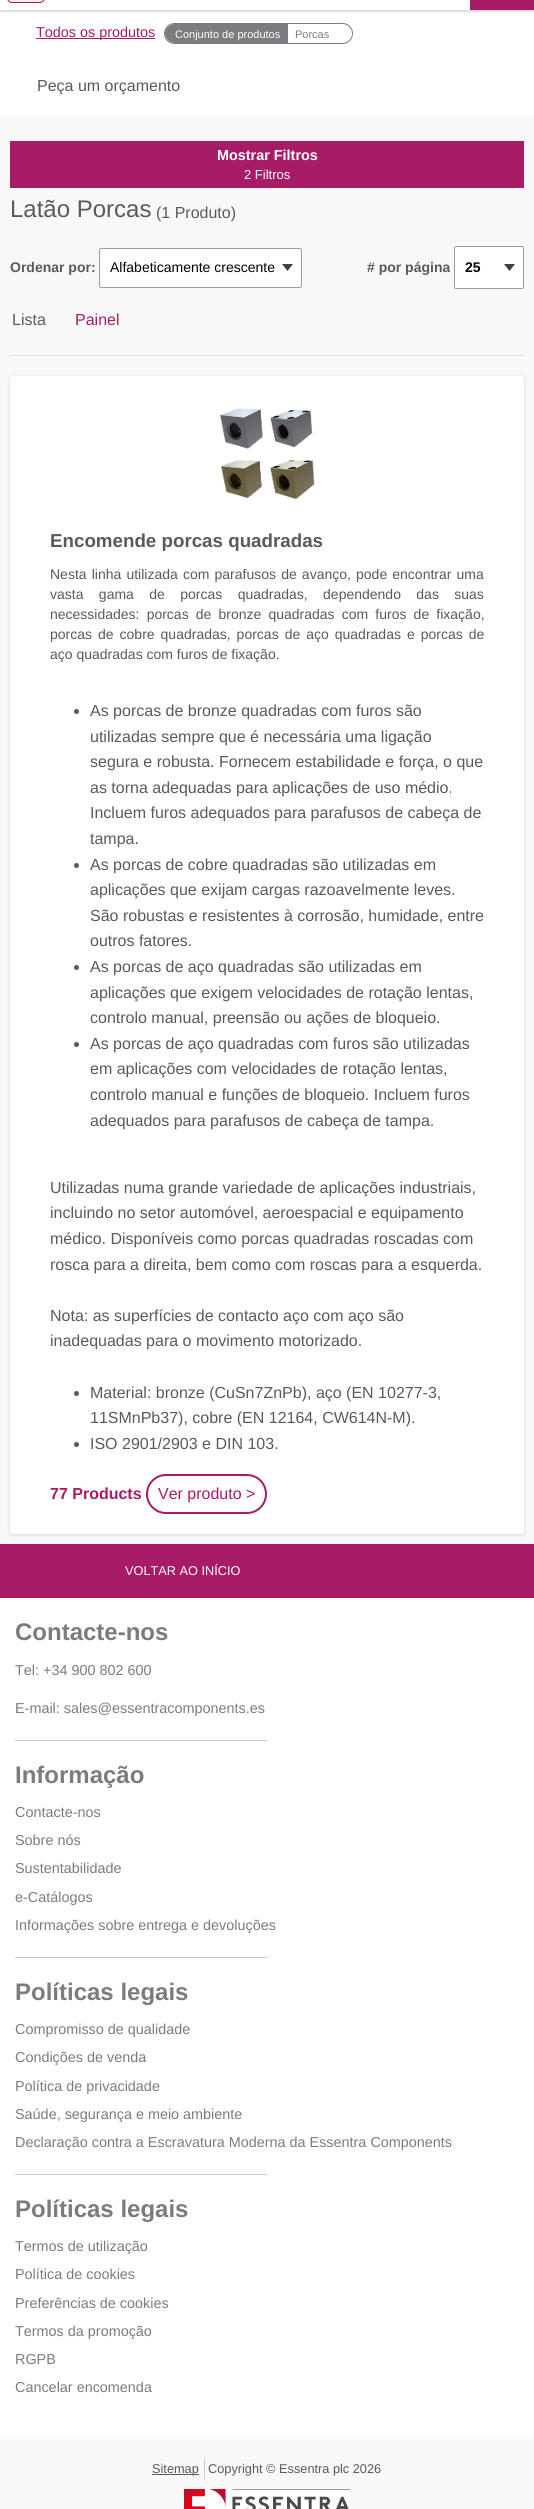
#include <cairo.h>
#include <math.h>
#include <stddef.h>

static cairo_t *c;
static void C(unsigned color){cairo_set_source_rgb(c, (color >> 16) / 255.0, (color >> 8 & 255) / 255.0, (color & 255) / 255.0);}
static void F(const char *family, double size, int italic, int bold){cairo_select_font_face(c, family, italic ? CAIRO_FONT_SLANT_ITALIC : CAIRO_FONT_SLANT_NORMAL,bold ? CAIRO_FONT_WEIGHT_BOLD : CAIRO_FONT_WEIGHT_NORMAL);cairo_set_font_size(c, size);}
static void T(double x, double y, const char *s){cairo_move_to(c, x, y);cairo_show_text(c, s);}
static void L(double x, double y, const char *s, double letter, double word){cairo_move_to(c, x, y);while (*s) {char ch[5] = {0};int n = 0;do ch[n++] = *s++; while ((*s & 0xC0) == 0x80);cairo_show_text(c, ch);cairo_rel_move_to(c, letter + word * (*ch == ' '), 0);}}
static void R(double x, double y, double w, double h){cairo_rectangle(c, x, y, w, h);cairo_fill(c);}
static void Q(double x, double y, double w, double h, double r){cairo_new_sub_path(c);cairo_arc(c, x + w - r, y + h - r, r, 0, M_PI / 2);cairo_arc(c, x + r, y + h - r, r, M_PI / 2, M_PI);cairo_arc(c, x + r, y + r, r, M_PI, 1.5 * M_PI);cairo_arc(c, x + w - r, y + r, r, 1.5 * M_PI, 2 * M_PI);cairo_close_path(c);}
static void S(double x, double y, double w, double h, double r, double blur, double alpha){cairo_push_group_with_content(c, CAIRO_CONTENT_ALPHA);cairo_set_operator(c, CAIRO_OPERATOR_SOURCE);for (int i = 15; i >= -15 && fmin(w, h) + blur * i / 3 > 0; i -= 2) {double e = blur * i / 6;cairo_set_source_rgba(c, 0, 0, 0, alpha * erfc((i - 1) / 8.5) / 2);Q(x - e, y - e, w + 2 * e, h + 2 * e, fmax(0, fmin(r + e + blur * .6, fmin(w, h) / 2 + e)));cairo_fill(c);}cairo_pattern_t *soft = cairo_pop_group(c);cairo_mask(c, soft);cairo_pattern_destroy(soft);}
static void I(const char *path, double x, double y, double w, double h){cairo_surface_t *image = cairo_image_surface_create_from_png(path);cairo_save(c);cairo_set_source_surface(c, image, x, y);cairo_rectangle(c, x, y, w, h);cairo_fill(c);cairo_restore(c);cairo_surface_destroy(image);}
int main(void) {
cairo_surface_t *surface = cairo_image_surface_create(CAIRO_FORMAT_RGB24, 534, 2509);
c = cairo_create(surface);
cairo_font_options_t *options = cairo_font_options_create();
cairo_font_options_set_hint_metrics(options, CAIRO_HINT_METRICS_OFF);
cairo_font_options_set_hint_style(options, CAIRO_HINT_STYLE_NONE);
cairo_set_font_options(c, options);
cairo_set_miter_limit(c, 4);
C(0xffffff);
cairo_paint(c);
cairo_save(c);
cairo_rectangle(c,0,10,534,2);
cairo_clip(c);
C(0x000001);
S(0,-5,534,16,0,1.5,.1);
cairo_restore(c);
cairo_save(c);
cairo_rectangle(c,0,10,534,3);
cairo_clip(c);
C(0x000001);
S(0,-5,534,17,0,1.5,.1);
cairo_restore(c);
C(0xfceef5);
Q(7.5,-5.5,37,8,4.5);
cairo_fill_preserve(c);
C(0xa81b65);
cairo_set_line_width(c,1);
cairo_stroke(c);
R(470,0,64,10);
R(36,38,119,1);
F("Liberation Sans",14.4,0,0);
T(36,37,"Todos os produtos");
Q(164.5,23.5,188,20,10);
C(0x7b7c7f);
cairo_stroke(c);
cairo_new_path(c);
cairo_move_to(c,174.5,24);
cairo_line_to(c,288,24);
cairo_line_to(c,288,43);
cairo_line_to(c,174.5,43);
cairo_curve_to(c,169.5,43,165,38.5,165,33.5);
cairo_curve_to(c,165,28.5,169.5,24,174.5,24);
cairo_close_path(c);
cairo_fill(c);
F("Liberation Sans",11,0,0);
C(0xffffff);
T(175,38,"Conjunto de produtos");
C(0x7b7c7f);
T(295,38,"Porcas");
F("Liberation Sans",16,0,0);
C(0x5a5a5a);
T(37,91,"Peça um orçamento");
C(0xf8f8f8);
R(0,115,534,1429);
C(0xa81b65);
R(10,141,514,47);
F("Liberation Sans",14.4,0,1);
C(0xffffff);
T(217,160,"Mostrar Filtros");
F("Liberation Sans",13,0,0);
T(244,179,"2 Filtros");
F("Liberation Sans",24,0,0);
C(0x5a5a5a);
T(10,217,"Latão Porcas");
F("Liberation Sans",16,0,0);
T(156,218,"(1 Produto)");
F("Liberation Sans",14,0,1);
T(10,272,"Ordenar por:");
C(0xffffff);
Q(99,248,203,40,2);
cairo_fill(c);
I("1.png",282,264,11,7);
Q(99.5,248.5,202,39,1.5);
C(0x9d9da1);
cairo_stroke(c);
F("Liberation Sans",14,0,0);
C(0x000000);
T(110,272,"Alfabeticamente crescente");
F("Liberation Sans",14,0,1);
C(0x5a5a5a);
T(367,272,"# por página");
C(0xffffff);
Q(454,246,70,43,2);
cairo_fill(c);
I("1.png",504,264,11,7);
Q(454.5,246.5,69,42,1.5);
C(0x9d9da1);
cairo_stroke(c);
C(0x000000);
T(465,272,"25");
F("Liberation Sans",16,0,0);
C(0x5a5a5a);
T(12,325,"Lista");
C(0xa81b65);
T(75,325,"Painel");
C(0xdee2e6);
R(10,355,514,1);
C(0x000001);
S(10,377,514,1158,2,1.5,.15);
C(0xffffff);
Q(10,376,514,1158,2);
cairo_fill(c);
I("2.png",220,408,95,92);
F("Liberation Sans",18.75,0,1);
C(0x5a5a5a);
T(50,547,"Encomende porcas quadradas");
F("Liberation Sans",14,0,0);
L(50,579,"Nesta linha utilizada com parafusos de avanço, pode encontrar uma",0,1.25);
L(50,599,"vasta gama de porcas quadradas, dependendo das suas",0,11.5);
L(50,619,"necessidades: porcas de bronze quadradas com furos de fixação,",0,3.25);
L(50,639,"porcas de cobre quadradas, porcas de aço quadradas e porcas de",0,2.1);
T(50,659,"aço quadradas com furos de fixação.");
cairo_new_path(c);
cairo_arc(c,76.5,711.5,2.5,0,2 * M_PI);
cairo_fill(c);
F("Liberation Sans",16,0,0);
T(90,716,"As porcas de bronze quadradas com furos são");
T(90,742,"utilizadas sempre que é necessária uma ligação");
T(90,767,"segura e robusta. Fornecem estabilidade e força, o que");
T(90,793,"as torna adequadas para aplicações de uso médio.");
T(90,818,"Incluem furos adequados para parafusos de cabeça de");
T(90,844,"tampa.");
cairo_new_path(c);
cairo_arc(c,76.5,865.5,2.5,0,2 * M_PI);
cairo_fill(c);
T(90,870,"As porcas de cobre quadradas são utilizadas em");
T(90,895,"aplicações que exijam cargas razoavelmente leves.");
T(90,921,"São robustas e resistentes à corrosão, humidade, entre");
T(90,946,"outros fatores.");
cairo_new_path(c);
cairo_arc(c,76.5,967.5,2.5,0,2 * M_PI);
cairo_fill(c);
T(90,972,"As porcas de aço quadradas são utilizadas em");
T(90,998,"aplicações que exigem velocidades de rotação lentas,");
T(90,1023,"controlo manual, preensão ou ações de bloqueio.");
cairo_new_path(c);
cairo_arc(c,76.5,1044.5,2.5,0,2 * M_PI);
cairo_fill(c);
T(90,1049,"As porcas de aço quadradas com furos são utilizadas");
T(90,1074,"em aplicações com velocidades de rotação lentas,");
T(90,1100,"controlo manual e funções de bloqueio. Incluem furos");
T(90,1126,"adequados para parafusos de cabeça de tampa.");
T(50,1193,"Utilizadas numa grande variedade de aplicações industriais,");
T(50,1218,"incluindo no setor automóvel, aeroespacial e equipamento");
T(50,1244,"médico. Disponíveis como porcas quadradas roscadas com");
T(50,1270,"rosca para a direita, bem como com roscas para a esquerda.");
T(50,1321,"Nota: as superfícies de contacto aço com aço são");
T(50,1346,"inadequadas para o movimento motorizado.");
cairo_new_path(c);
cairo_arc(c,76.5,1393.5,2.5,0,2 * M_PI);
cairo_fill(c);
T(90,1398,"Material: bronze (CuSn7ZnPb), aço (EN 10277-3,");
T(90,1423,"11SMnPb37), cobre (EN 12164, CW614N-M).");
cairo_new_path(c);
cairo_arc(c,76.5,1444.5,2.5,0,2 * M_PI);
cairo_fill(c);
T(90,1449,"ISO 2901/2903 e DIN 103.");
F("Liberation Sans",16,0,1);
C(0xa81b65);
T(50,1499,"77 Products");
Q(147,1475,119,38,19);
cairo_set_line_width(c,2);
cairo_stroke(c);
F("Liberation Sans",16,0,0);
T(158,1499,"Ver produto >");
R(0,1544,534,54);
F("Liberation Sans",12.75,0,0);
C(0xffffff);
T(125,1575,"VOLTAR AO INÍCIO");
F("Liberation Sans",24,0,1);
C(0x7b7c7f);
T(15,1640,"Contacte-nos");
F("Liberation Sans",14.4,0,0);
T(15,1675,"Tel: +34 900 802 600");
T(15,1713,"E-mail: sales@essentracomponents.es");
C(0xcbcbcb);
R(15,1740,252,1);
F("Liberation Sans",24,0,1);
C(0x7b7c7f);
T(15,1783,"Informação");
F("Liberation Sans",14.4,0,0);
T(15,1817,"Contacte-nos");
T(15,1845,"Sobre nós");
T(15,1873,"Sustentabilidade");
T(15,1902,"e-Catálogos");
T(15,1930,"Informações sobre entrega e devoluções");
C(0xcbcbcb);
R(15,1957,252,1);
F("Liberation Sans",24,0,1);
C(0x7b7c7f);
T(15,2000,"Políticas legais");
F("Liberation Sans",14.4,0,0);
T(15,2034,"Compromisso de qualidade");
T(15,2062,"Condições de venda");
T(15,2091,"Política de privacidade");
T(15,2119,"Saúde, segurança e meio ambiente");
T(15,2147,"Declaração contra a Escravatura Moderna da Essentra Components");
C(0xcbcbcb);
R(15,2174,252,1);
F("Liberation Sans",24,0,1);
C(0x7b7c7f);
T(15,2217,"Políticas legais");
F("Liberation Sans",14.4,0,0);
T(15,2251,"Termos de utilização");
T(15,2279,"Política de cookies");
T(15,2308,"Preferências de cookies");
T(15,2336,"Termos da promoção");
T(15,2364,"RGPB");
T(15,2392,"Cancelar encomenda");
C(0xf8f8f8);
R(0,2439,534,70);
C(0xcbcbcb);
R(204,2459,1,20);
C(0x5a5a5a);
R(152,2474,47,1);
F("Liberation Sans",12.75,0,0);
T(152,2473,"Sitemap");
T(208,2473,"Copyright © Essentra plc 2026");
I("3.png",184,2489,166,20);
cairo_surface_write_to_png(surface, "o.png");
cairo_font_options_destroy(options);
cairo_destroy(c);
cairo_surface_destroy(surface);
return 0;
}
